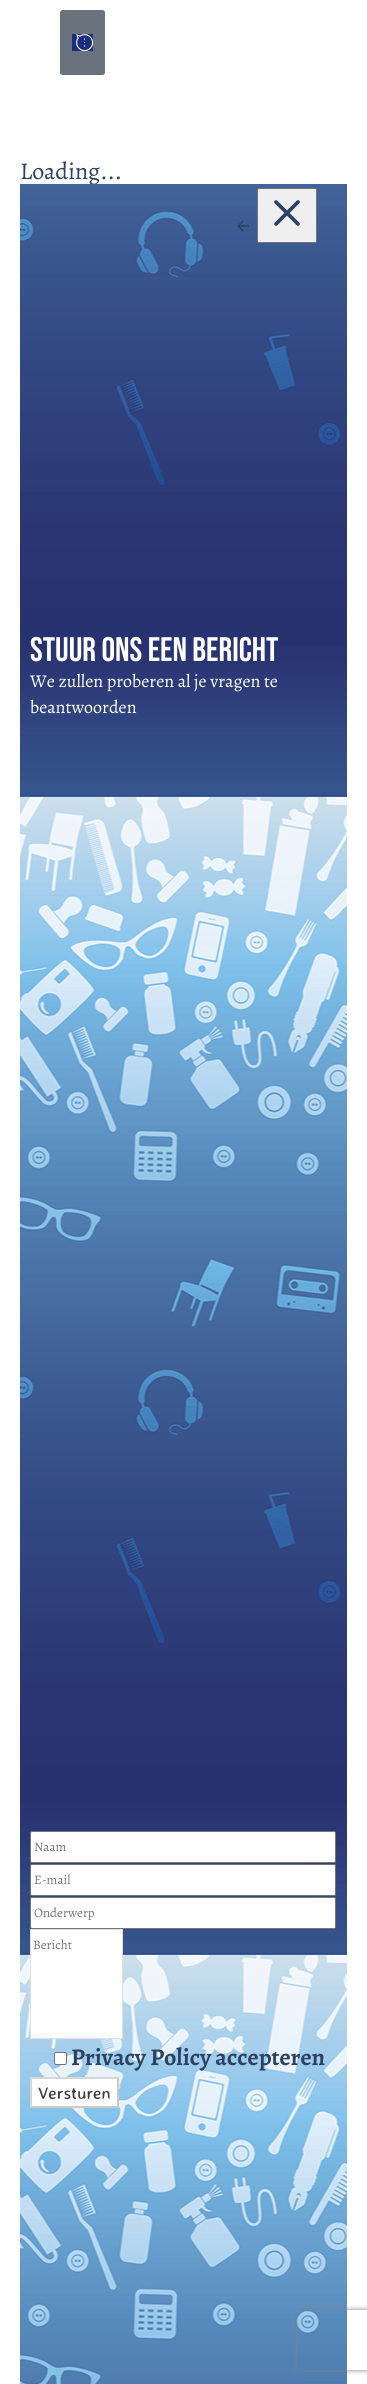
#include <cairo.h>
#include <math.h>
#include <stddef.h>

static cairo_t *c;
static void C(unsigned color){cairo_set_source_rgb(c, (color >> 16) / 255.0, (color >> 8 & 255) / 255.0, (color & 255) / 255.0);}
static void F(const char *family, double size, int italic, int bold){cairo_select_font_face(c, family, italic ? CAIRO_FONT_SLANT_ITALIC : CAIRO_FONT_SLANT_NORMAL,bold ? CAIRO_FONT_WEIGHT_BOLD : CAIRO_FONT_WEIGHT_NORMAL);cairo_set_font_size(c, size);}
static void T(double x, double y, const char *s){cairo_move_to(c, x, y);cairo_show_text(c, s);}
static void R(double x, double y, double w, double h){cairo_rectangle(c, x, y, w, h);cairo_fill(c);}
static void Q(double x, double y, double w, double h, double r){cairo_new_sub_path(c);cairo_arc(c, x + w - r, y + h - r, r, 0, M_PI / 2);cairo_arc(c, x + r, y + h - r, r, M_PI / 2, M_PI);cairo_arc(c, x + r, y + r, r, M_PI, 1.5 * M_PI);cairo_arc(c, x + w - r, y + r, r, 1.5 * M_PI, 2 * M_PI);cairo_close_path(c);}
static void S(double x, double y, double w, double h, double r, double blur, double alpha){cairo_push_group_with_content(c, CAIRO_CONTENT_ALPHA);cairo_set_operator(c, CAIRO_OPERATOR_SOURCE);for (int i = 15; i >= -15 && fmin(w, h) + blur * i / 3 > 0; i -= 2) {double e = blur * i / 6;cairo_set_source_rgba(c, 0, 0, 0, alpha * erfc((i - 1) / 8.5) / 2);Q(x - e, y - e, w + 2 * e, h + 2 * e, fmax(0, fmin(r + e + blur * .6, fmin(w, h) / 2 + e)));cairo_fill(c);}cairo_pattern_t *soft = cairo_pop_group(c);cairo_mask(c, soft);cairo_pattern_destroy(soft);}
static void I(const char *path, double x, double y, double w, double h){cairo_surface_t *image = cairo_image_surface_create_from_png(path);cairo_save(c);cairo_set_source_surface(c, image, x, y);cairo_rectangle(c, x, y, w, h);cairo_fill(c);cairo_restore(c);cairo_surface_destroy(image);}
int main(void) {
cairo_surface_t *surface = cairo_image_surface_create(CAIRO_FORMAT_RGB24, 367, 2384);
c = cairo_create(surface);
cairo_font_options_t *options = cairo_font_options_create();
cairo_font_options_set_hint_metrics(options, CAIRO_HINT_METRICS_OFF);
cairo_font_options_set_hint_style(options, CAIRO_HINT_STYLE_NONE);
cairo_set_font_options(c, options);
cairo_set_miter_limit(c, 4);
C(0xffffff);
cairo_paint(c);
C(0x69727d);
cairo_new_path(c);
cairo_move_to(c,105,13);
cairo_line_to(c,105,72);
cairo_curve_to(c,105,74,104,75,102,75);
cairo_line_to(c,63,75);
cairo_curve_to(c,61,75,60,74,60,72);
cairo_line_to(c,60,13);
cairo_curve_to(c,60,11,61,10,63,10);
cairo_line_to(c,102,10);
cairo_curve_to(c,104,10,105,11,105,13);
cairo_close_path(c);
cairo_fill(c);
C(0x192f7b);
R(72,34,21,17);
I("1.png",76,34,18,18);
F("Alegreya",24,0,0);
C(0x2d4162);
T(20,179,"Loading...");
I("3.png",20,184,327,2200);
I("2.png",237,220,12,12);
C(0xefefef);
Q(257.5,188.5,59,54,1.5);
cairo_fill_preserve(c);
C(0x767676);
cairo_set_line_width(c,1);
cairo_stroke(c);
cairo_new_path(c);
cairo_move_to(c,298,202);
cairo_line_to(c,276,224);
cairo_move_to(c,276,202);
cairo_line_to(c,298,224);
C(0x2d4162);
cairo_set_line_width(c,3.7);
cairo_set_line_cap(c,CAIRO_LINE_CAP_ROUND);
cairo_set_line_join(c,CAIRO_LINE_JOIN_ROUND);
cairo_stroke(c);
F("Bebas Neue",34,0,0);
C(0xffffff);
T(30,661,"Stuur ons een bericht");
F("Alegreya",18,0,0);
T(30,687,"We zullen proberen al je vragen te");
T(30,713,"beantwoorden");
Q(30.5,1831.5,305,31,1.5);
cairo_fill_preserve(c);
C(0x767676);
cairo_set_line_width(c,1);
cairo_set_line_cap(c,CAIRO_LINE_CAP_BUTT);
cairo_set_line_join(c,CAIRO_LINE_JOIN_MITER);
cairo_stroke(c);
F("Alegreya",13,0,0);
C(0x757575);
T(34,1851,"Naam");
C(0xffffff);
Q(30.5,1864.5,305,31,1.5);
cairo_fill_preserve(c);
C(0x767676);
cairo_stroke(c);
C(0x757575);
T(34,1884,"E-mail");
C(0xffffff);
Q(30.5,1897.5,305,31,1.5);
cairo_fill_preserve(c);
C(0x767676);
cairo_stroke(c);
C(0x757575);
T(34,1917,"Onderwerp");
C(0xffffff);
cairo_rectangle(c,30.5,1929.5,92,109);
cairo_fill_preserve(c);
C(0xe0e0e0);
cairo_stroke(c);
C(0x757575);
T(33,1949,"Bericht");
C(0xffffff);
Q(54.5,2052.5,12,12,1.5);
cairo_fill_preserve(c);
C(0x767676);
cairo_stroke(c);
F("Alegreya",24,0,1);
C(0x2d4162);
T(71,2065,"Privacy Policy accepteren");
C(0xffffff);
R(30,2077,89,31);
C(0xd6d6d6);
cairo_new_path(c);
cairo_move_to(c,30,2077);
cairo_line_to(c,119,2077);
cairo_line_to(c,117,2079);
cairo_line_to(c,32,2079);
cairo_close_path(c);
cairo_fill(c);
cairo_set_source_rgba(c,0.31,0.31,0.31,0.3);
cairo_new_path(c);
cairo_move_to(c,119,2077);
cairo_line_to(c,119,2108);
cairo_line_to(c,117,2106);
cairo_line_to(c,117,2079);
cairo_close_path(c);
cairo_fill(c);
cairo_new_path(c);
cairo_move_to(c,119,2108);
cairo_line_to(c,30,2108);
cairo_line_to(c,32,2106);
cairo_line_to(c,117,2106);
cairo_close_path(c);
cairo_fill(c);
cairo_set_source_rgba(c,0.463,0.463,0.463,0.3);
cairo_new_path(c);
cairo_move_to(c,30,2108);
cairo_line_to(c,30,2077);
cairo_line_to(c,32,2079);
cairo_line_to(c,32,2106);
cairo_close_path(c);
cairo_fill(c);
F("Averia Sans Libre",17,0,0);
C(0x3d3c3c);
T(38,2099,"Versturen");
cairo_save(c);
cairo_set_fill_rule(c,CAIRO_FILL_RULE_EVEN_ODD);
cairo_new_path(c);
cairo_move_to(c,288,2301);
cairo_line_to(c,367,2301);
cairo_line_to(c,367,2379);
cairo_line_to(c,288,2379);
cairo_close_path(c);
cairo_move_to(c,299,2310);
cairo_line_to(c,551,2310);
cairo_curve_to(c,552,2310,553,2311,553,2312);
cairo_line_to(c,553,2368);
cairo_curve_to(c,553,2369,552,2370,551,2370);
cairo_line_to(c,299,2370);
cairo_curve_to(c,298,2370,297,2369,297,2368);
cairo_line_to(c,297,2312);
cairo_curve_to(c,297,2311,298,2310,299,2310);
cairo_close_path(c);
cairo_clip(c);
C(0x808080);
S(297,2310,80,60,2,2.5,1);
cairo_restore(c);
cairo_surface_write_to_png(surface, "o.png");
cairo_font_options_destroy(options);
cairo_destroy(c);
cairo_surface_destroy(surface);
return 0;
}
